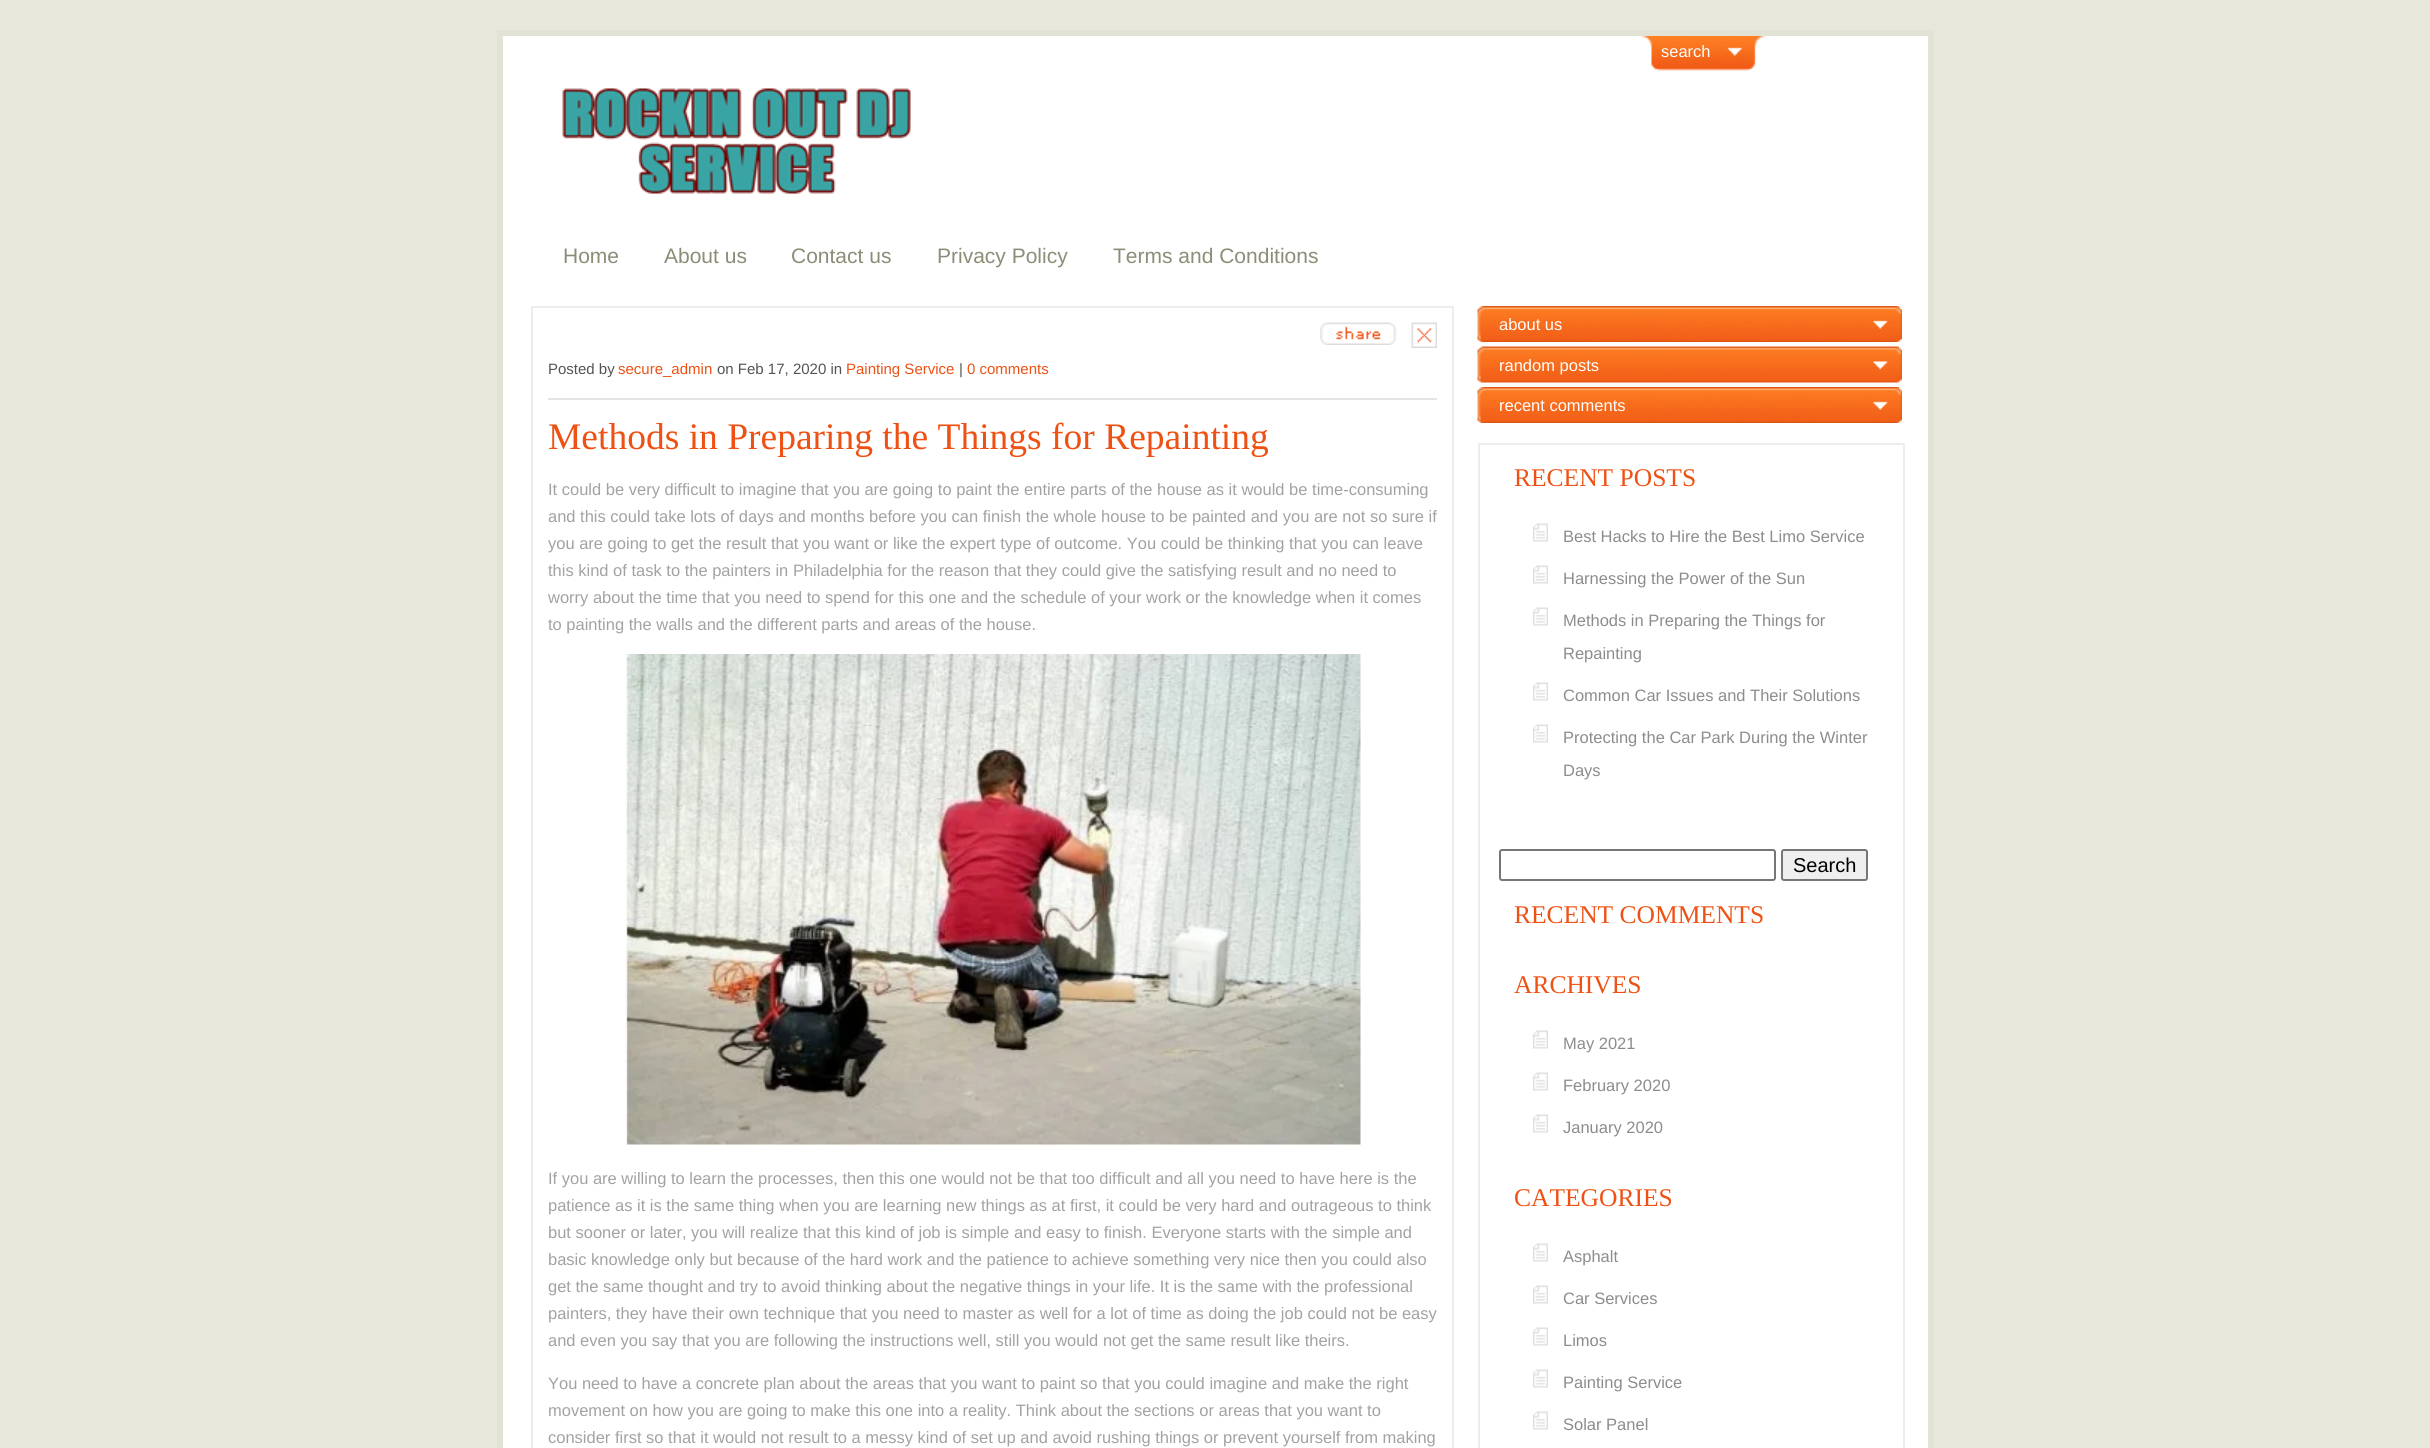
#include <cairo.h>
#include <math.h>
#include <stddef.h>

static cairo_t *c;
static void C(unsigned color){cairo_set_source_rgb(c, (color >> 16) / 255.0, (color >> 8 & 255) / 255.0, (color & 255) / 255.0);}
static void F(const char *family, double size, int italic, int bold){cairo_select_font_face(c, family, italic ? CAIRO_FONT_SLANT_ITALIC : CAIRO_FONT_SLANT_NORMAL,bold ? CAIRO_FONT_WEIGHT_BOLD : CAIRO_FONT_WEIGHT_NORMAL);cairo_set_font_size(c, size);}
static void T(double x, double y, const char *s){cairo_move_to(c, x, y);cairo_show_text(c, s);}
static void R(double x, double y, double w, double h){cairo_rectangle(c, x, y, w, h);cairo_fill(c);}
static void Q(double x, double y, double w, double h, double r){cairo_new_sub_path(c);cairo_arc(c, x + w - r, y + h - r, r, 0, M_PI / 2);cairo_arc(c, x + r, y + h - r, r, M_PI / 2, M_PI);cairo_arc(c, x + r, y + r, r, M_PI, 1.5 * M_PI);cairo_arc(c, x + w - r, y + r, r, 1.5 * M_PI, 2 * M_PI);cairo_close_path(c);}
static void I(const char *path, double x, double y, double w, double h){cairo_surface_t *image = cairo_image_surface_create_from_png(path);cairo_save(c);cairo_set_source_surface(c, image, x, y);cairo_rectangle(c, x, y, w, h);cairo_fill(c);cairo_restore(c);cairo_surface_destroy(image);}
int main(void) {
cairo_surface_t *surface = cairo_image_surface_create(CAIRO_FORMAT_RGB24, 2430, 1448);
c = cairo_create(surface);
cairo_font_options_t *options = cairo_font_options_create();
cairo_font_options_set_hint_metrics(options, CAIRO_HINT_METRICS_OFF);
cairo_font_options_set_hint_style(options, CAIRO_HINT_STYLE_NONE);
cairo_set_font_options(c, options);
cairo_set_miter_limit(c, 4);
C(0xe7e7dc);
cairo_paint(c);
C(0xffffff);
cairo_rectangle(c,500,33,1431,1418);
cairo_fill_preserve(c);
C(0xe3e3d5);
cairo_set_line_width(c,6);
cairo_stroke(c);
I("1.png",1641,36,125,35);
F("Liberation Sans",16.5,0,0);
C(0xffffff);
T(1661,57,"search");
I("2.png",562,88,349,106);
F("Liberation Sans",21,0,0);
C(0x8c8c77);
T(563,263,"Home");
T(664,263,"About us");
T(791,263,"Contact us");
T(937,263,"Privacy Policy");
T(1113,263,"Terms and Conditions");
cairo_rectangle(c,532,307,921,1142);
C(0xededed);
cairo_set_line_width(c,2);
cairo_stroke(c);
I("3.png",1320,322,77,23);
I("4.png",1411,322,26,26);
C(0xe4e4e4);
R(548,398,889,2);
F("Liberation Sans",15,0,0);
C(0x545454);
T(548,374,"Posted by");
C(0xee5113);
T(618,374,"secure_admin");
C(0x545454);
T(717,374,"on Feb 17, 2020 in");
C(0xee5113);
T(846,374,"Painting Service");
C(0x545454);
T(959,374,"|");
C(0xee5113);
T(967,374,"0 comments");
F("Liberation Serif",37.5,0,0);
T(548,449,"Methods in Preparing the Things for Repainting");
F("Liberation Sans",16.5,0,0);
C(0xa2a2a2);
T(548,495,"It could be very difficult to imagine that you are going to paint the entire parts of the house as it would be time-consuming");
T(548,522,"and this could take lots of days and months before you can finish the whole house to be painted and you are not so sure if");
T(548,549,"you are going to get the result that you want or like the expert type of outcome. You could be thinking that you can leave");
T(548,576,"this kind of task to the painters in Philadelphia for the reason that they could give the satisfying result and no need to");
T(548,603,"worry about the time that you need to spend for this one and the schedule of your work or the knowledge when it comes");
T(548,630,"to painting the walls and the different parts and areas of the house.");
I("5.png",625,654,736,493);
T(548,1184,"If you are willing to learn the processes, then this one would not be that too difficult and all you need to have here is the");
T(548,1211,"patience as it is the same thing when you are learning new things as at first, it could be very hard and outrageous to think");
T(548,1238,"but sooner or later, you will realize that this kind of job is simple and easy to finish. Everyone starts with the simple and");
T(548,1265,"basic knowledge only but because of the hard work and the patience to achieve something very nice then you could also");
T(548,1292,"get the same thought and try to avoid thinking about the negative things in your life. It is the same with the professional");
T(548,1319,"painters, they have their own technique that you need to master as well for a lot of time as doing the job could not be easy");
T(548,1346,"and even you say that you are following the instructions well, still you would not get the same result like theirs.");
T(548,1389,"You need to have a concrete plan about the areas that you want to paint so that you could imagine and make the right");
T(548,1416,"movement on how you are going to make this one into a reality. Think about the sections or areas that you want to");
T(548,1443,"consider first so that it would not result to a messy kind of set up and avoid rushing things or prevent yourself from making");
I("6.png",1477,306,425,36);
C(0xffffff);
T(1499,330,"about us");
I("7.png",1477,346,425,37);
T(1499,371,"random posts");
I("6.png",1477,387,425,36);
T(1499,411,"recent comments");
cairo_rectangle(c,1479,444,425,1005);
C(0xededed);
cairo_stroke(c);
F("Liberation Serif",25.5,0,0);
C(0xee5113);
T(1514,486,"RECENT POSTS");
I("8.png",1533,523,15,19);
F("Liberation Sans",16.5,0,0);
C(0x8c8c8c);
T(1563,542,"Best Hacks to Hire the Best Limo Service");
I("8.png",1533,565,15,19);
T(1563,584,"Harnessing the Power of the Sun");
I("8.png",1533,607,15,19);
T(1563,626,"Methods in Preparing the Things for");
T(1563,659,"Repainting");
I("8.png",1533,682,15,19);
T(1563,701,"Common Car Issues and Their Solutions");
I("8.png",1533,724,15,19);
T(1563,743,"Protecting the Car Park During the Winter");
T(1563,776,"Days");
Q(1500,850,275,30,2);
C(0x767676);
cairo_stroke(c);
C(0xefefef);
Q(1782,850,85,30,2);
cairo_fill_preserve(c);
C(0x767676);
cairo_stroke(c);
F("Liberation Sans",20,0,0);
C(0x000000);
T(1793,872,"Search");
F("Liberation Serif",25.5,0,0);
C(0xee5113);
T(1514,923,"RECENT COMMENTS");
T(1514,993,"ARCHIVES");
I("8.png",1533,1030,15,19);
F("Liberation Sans",16.5,0,0);
C(0x8c8c8c);
T(1563,1049,"May 2021");
I("8.png",1533,1072,15,19);
T(1563,1091,"February 2020");
I("8.png",1533,1114,15,19);
T(1563,1133,"January 2020");
F("Liberation Serif",25.5,0,0);
C(0xee5113);
T(1514,1206,"CATEGORIES");
I("8.png",1533,1243,15,19);
F("Liberation Sans",16.5,0,0);
C(0x8c8c8c);
T(1563,1262,"Asphalt");
I("8.png",1533,1285,15,19);
T(1563,1304,"Car Services");
I("8.png",1533,1327,15,19);
T(1563,1346,"Limos");
I("8.png",1533,1369,15,19);
T(1563,1388,"Painting Service");
I("8.png",1533,1411,15,19);
T(1563,1430,"Solar Panel");
cairo_surface_write_to_png(surface, "o.png");
cairo_font_options_destroy(options);
cairo_destroy(c);
cairo_surface_destroy(surface);
return 0;
}
